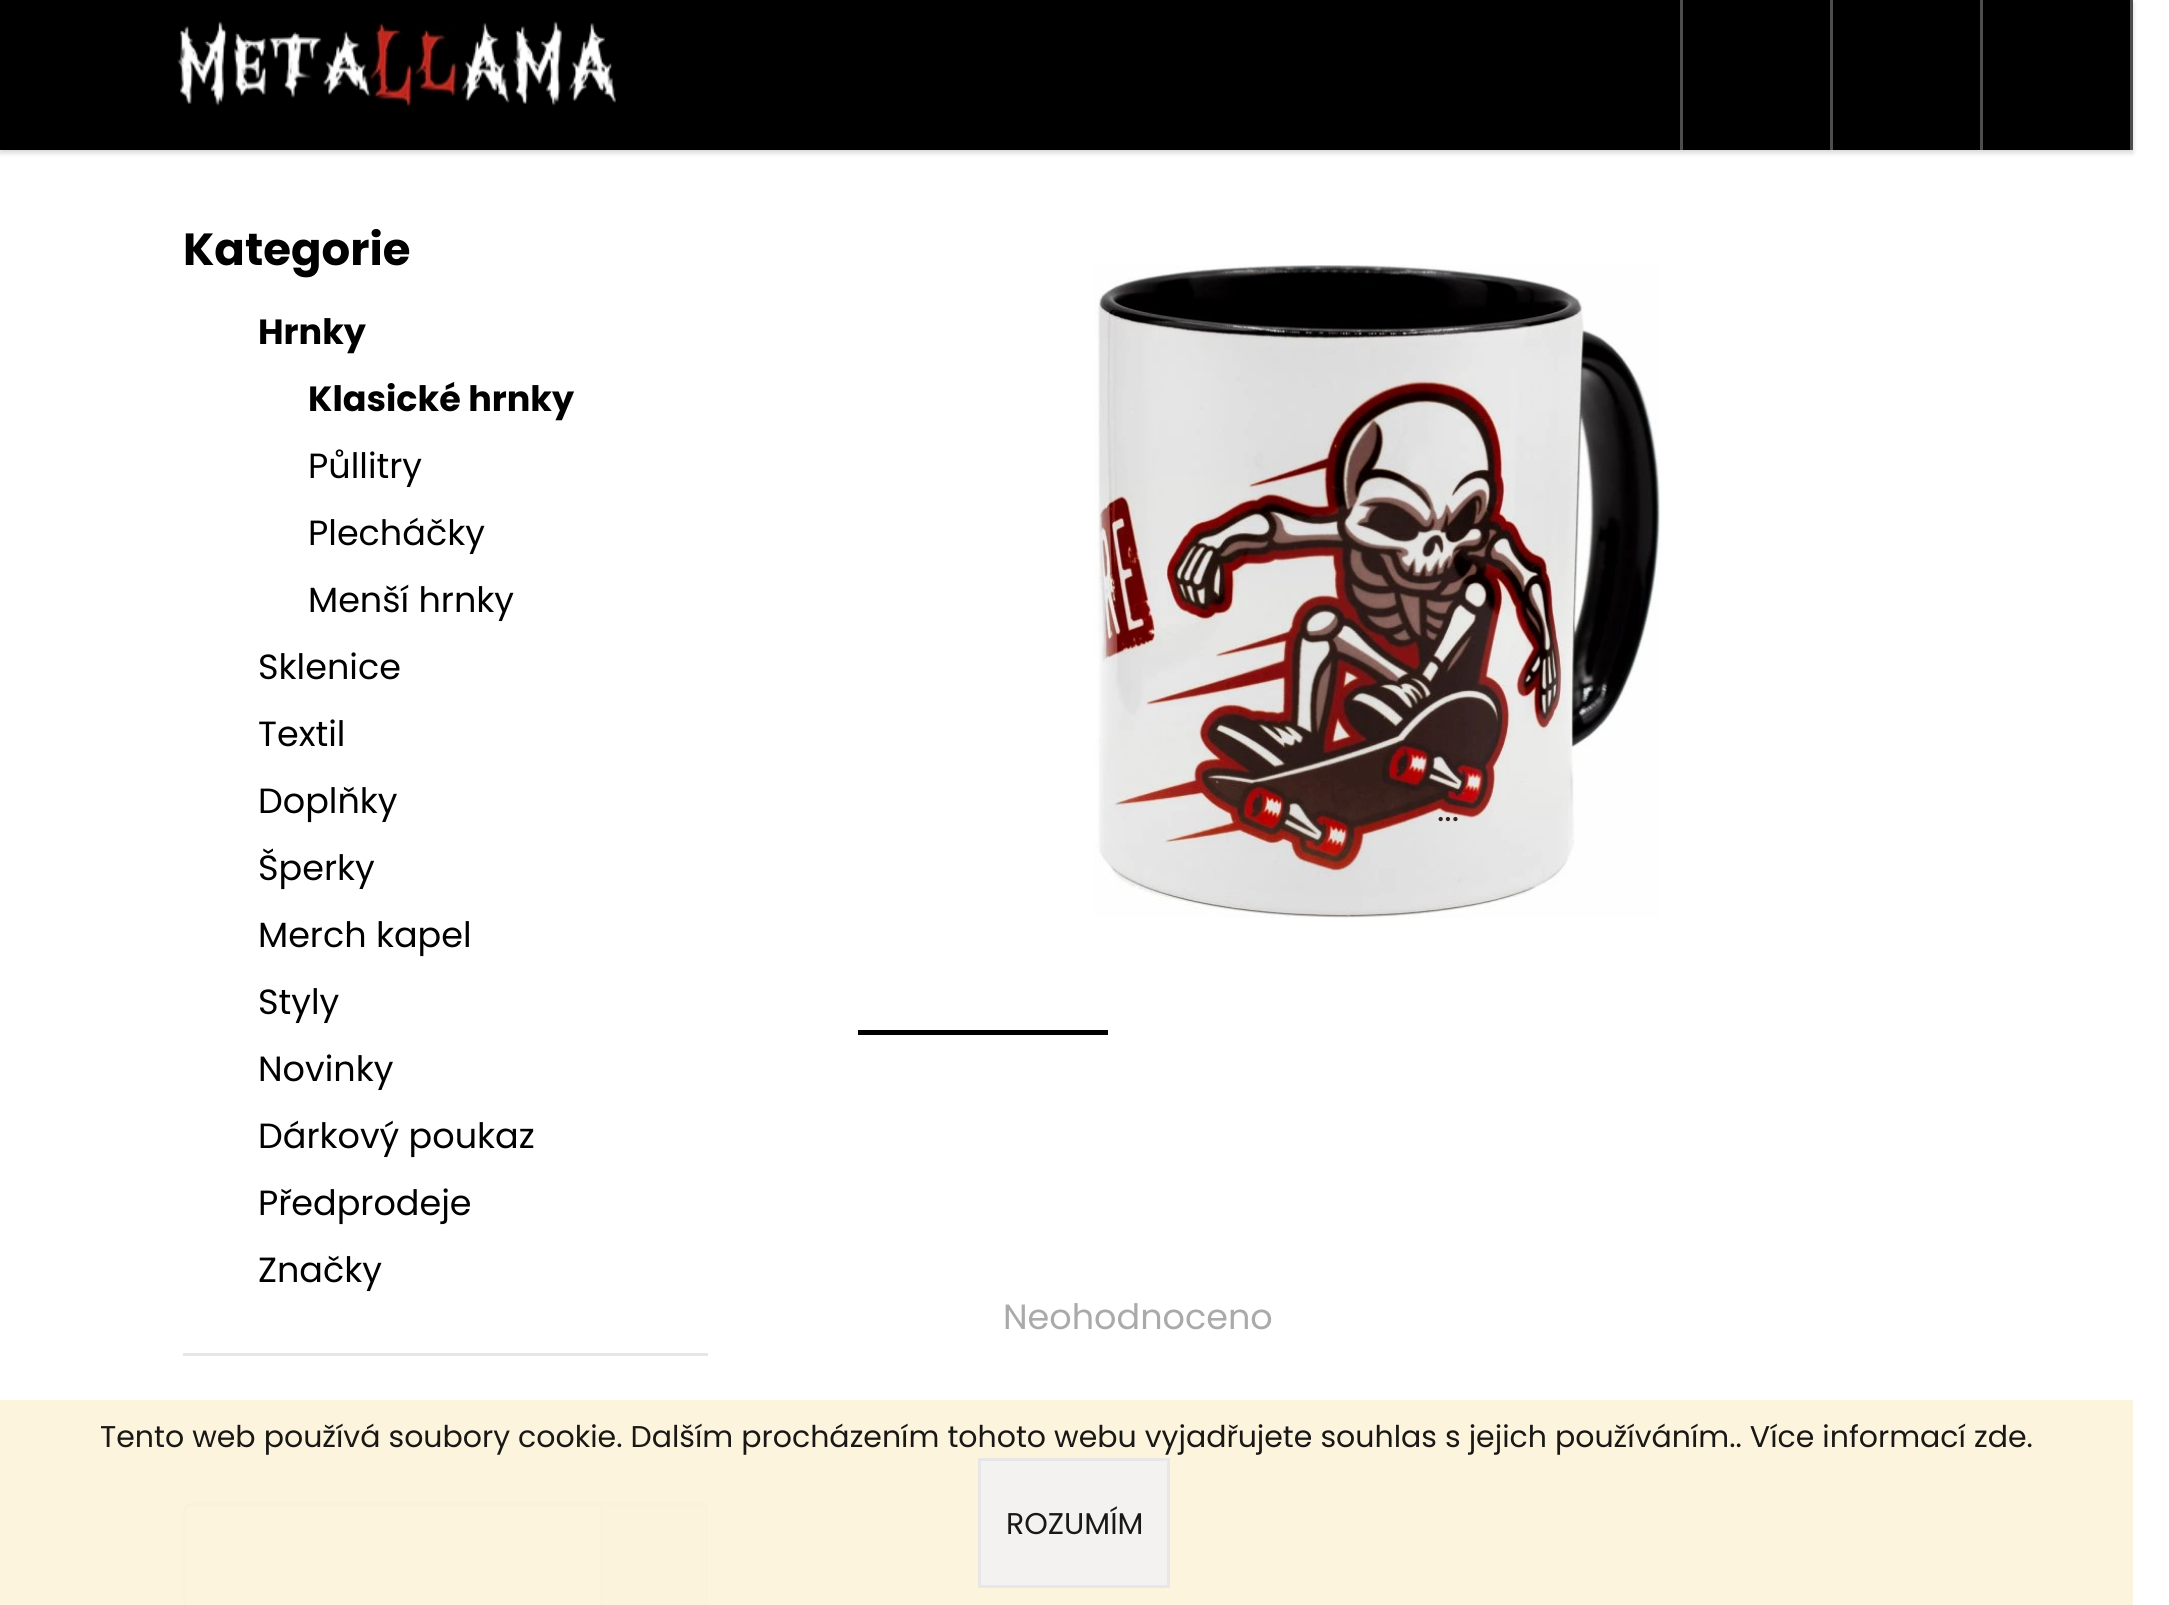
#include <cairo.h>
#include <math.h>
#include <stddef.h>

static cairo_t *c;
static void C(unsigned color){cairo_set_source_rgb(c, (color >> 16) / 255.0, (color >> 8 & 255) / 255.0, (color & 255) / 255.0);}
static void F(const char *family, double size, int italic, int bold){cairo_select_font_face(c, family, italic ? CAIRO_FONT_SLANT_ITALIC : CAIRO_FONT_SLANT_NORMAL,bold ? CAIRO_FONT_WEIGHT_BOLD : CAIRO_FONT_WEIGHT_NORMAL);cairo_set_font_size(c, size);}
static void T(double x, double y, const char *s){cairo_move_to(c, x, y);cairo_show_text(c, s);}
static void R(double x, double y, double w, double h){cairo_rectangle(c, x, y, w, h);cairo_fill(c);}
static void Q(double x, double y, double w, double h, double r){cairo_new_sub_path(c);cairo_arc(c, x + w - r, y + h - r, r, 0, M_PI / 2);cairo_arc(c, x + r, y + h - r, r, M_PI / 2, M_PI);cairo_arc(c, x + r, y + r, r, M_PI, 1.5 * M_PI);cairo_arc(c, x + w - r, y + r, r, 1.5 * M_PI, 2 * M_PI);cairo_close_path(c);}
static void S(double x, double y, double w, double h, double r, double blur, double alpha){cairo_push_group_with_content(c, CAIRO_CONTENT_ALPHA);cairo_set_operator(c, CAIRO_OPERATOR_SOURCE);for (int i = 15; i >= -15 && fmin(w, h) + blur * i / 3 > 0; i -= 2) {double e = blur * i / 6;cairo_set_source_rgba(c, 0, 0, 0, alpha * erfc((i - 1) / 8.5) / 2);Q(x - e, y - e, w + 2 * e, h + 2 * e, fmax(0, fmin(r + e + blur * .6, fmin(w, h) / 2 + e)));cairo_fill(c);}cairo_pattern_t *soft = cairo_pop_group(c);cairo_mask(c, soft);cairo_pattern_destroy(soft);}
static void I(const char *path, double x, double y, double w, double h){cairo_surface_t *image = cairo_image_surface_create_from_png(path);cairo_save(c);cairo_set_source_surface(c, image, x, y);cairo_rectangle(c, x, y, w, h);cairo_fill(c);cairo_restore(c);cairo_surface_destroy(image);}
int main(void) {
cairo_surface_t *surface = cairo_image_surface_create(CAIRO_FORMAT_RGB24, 2169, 1605);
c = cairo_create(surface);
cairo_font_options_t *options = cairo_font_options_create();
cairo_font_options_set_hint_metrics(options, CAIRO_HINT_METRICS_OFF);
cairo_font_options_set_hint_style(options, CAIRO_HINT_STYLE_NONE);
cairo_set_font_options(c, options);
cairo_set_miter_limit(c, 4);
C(0xffffff);
cairo_paint(c);
C(0x000000);
S(0,3,2133,150,0,2.5,.16);
C(0x000000);
R(0,0,2130,150);
I("1.png",177,21,439,86);
C(0x4d4d4d);
R(2130,0,3,150);
R(1680,0,3,150);
R(1830,0,3,150);
R(1980,0,3,150);
F("Poppins",45,0,1);
C(0x000000);
T(183,265,"Kategorie");
F("Poppins",35,0,1);
T(258,344,"Hrnky");
T(308,411,"Klasické hrnky");
F("Poppins",35,0,0);
T(308,478,"Půllitry");
T(308,545,"Plecháčky");
T(308,612,"Menší hrnky");
T(258,679,"Sklenice");
T(258,746,"Textil");
T(258,813,"Doplňky");
T(258,880,"Šperky");
T(258,947,"Merch kapel");
T(258,1014,"Styly");
T(258,1081,"Novinky");
T(258,1148,"Dárkový poukaz");
T(258,1215,"Předprodeje");
T(258,1282,"Značky");
C(0xe6e6e6);
R(183,1353,525,3);
Q(184.5,1504.5,522,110,6.5);
cairo_set_line_width(c,3);
cairo_stroke(c);
C(0xf2f2f2);
cairo_rectangle(c,601.5,1504.5,105,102);
cairo_fill_preserve(c);
C(0xe6e6e6);
cairo_stroke(c);
I("2.png",1094,265,567,653);
C(0x332422);
T(1437,821,"...");
C(0x000000);
R(858,1030,250,5);
C(0xaaaaaa);
T(1003,1329,"Neohodnoceno");
cairo_set_source_rgba(c,0.992,0.953,0.855,0.9);
R(0,1400,2133,205);
F("Poppins",30,0,0);
C(0x191816);
T(100,1447,"Tento web používá soubory cookie. Dalším procházením tohoto webu vyjadřujete souhlas s jejich používáním.. Více informací");
T(1974,1447,"zde.");
cairo_set_source_rgba(c,0.949,0.949,0.949,0.9);
R(978,1458,192,130);
cairo_rectangle(c,979.5,1459.5,189,127);
cairo_set_source_rgba(c,0.902,0.902,0.902,0.9);
cairo_stroke(c);
C(0x191816);
T(1006,1534,"ROZUMÍM");
cairo_surface_write_to_png(surface, "o.png");
cairo_font_options_destroy(options);
cairo_destroy(c);
cairo_surface_destroy(surface);
return 0;
}
